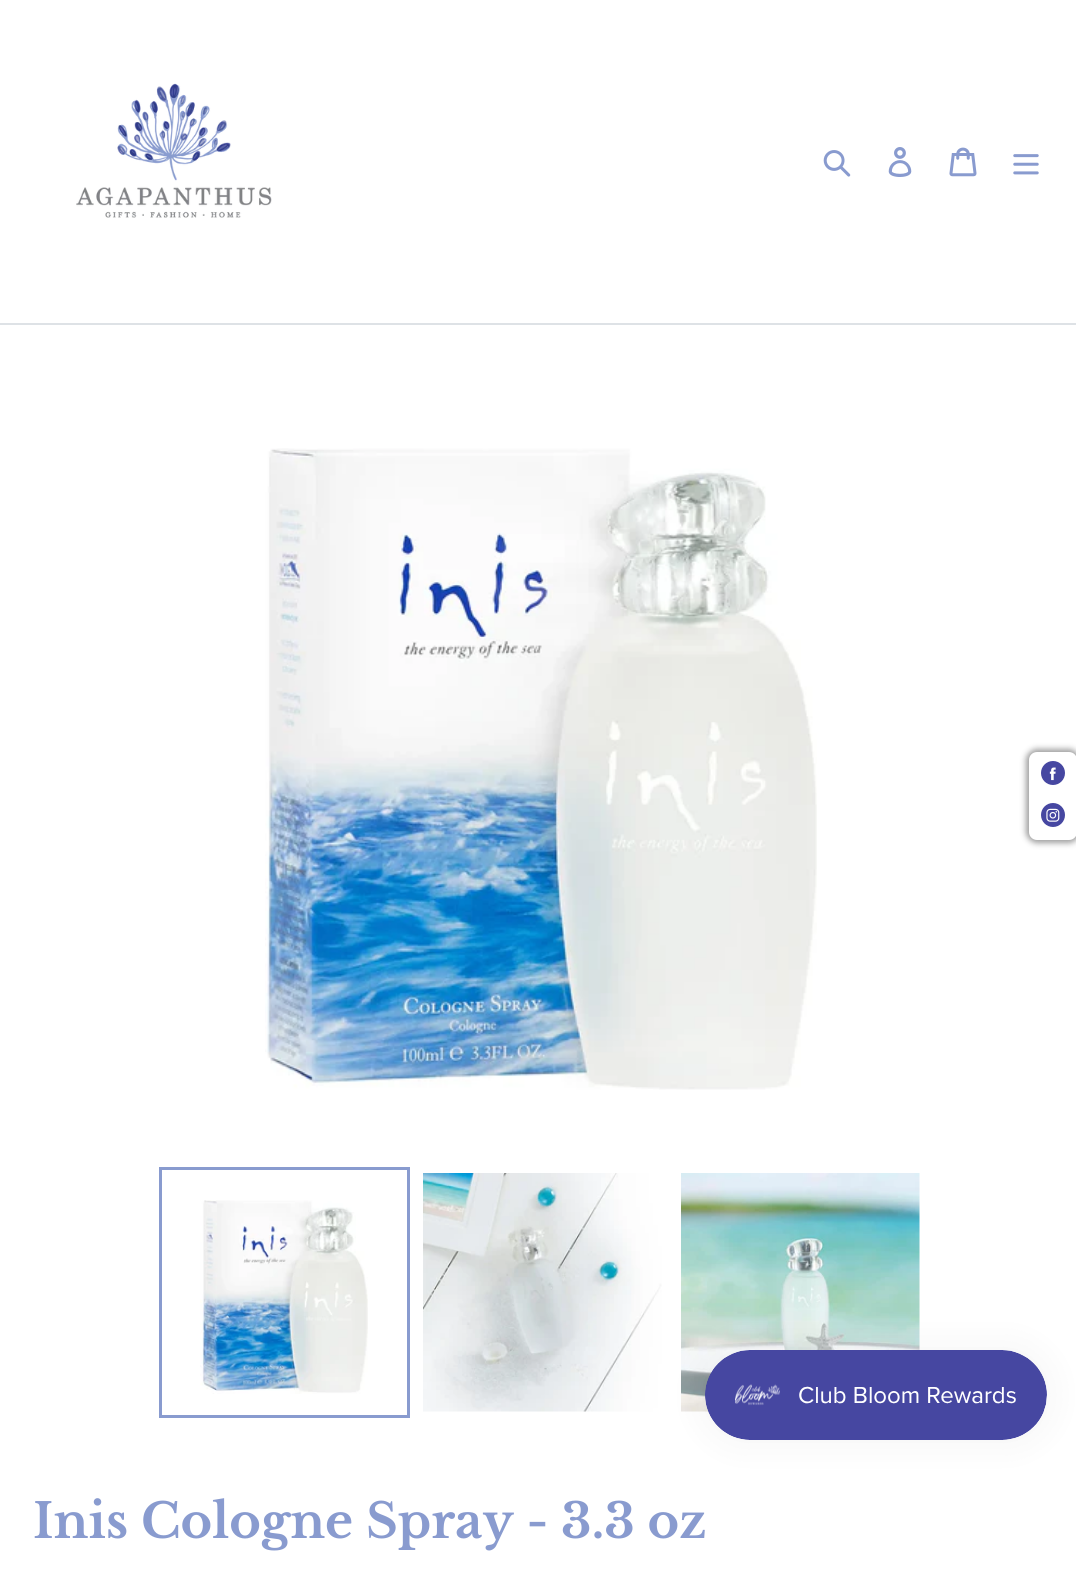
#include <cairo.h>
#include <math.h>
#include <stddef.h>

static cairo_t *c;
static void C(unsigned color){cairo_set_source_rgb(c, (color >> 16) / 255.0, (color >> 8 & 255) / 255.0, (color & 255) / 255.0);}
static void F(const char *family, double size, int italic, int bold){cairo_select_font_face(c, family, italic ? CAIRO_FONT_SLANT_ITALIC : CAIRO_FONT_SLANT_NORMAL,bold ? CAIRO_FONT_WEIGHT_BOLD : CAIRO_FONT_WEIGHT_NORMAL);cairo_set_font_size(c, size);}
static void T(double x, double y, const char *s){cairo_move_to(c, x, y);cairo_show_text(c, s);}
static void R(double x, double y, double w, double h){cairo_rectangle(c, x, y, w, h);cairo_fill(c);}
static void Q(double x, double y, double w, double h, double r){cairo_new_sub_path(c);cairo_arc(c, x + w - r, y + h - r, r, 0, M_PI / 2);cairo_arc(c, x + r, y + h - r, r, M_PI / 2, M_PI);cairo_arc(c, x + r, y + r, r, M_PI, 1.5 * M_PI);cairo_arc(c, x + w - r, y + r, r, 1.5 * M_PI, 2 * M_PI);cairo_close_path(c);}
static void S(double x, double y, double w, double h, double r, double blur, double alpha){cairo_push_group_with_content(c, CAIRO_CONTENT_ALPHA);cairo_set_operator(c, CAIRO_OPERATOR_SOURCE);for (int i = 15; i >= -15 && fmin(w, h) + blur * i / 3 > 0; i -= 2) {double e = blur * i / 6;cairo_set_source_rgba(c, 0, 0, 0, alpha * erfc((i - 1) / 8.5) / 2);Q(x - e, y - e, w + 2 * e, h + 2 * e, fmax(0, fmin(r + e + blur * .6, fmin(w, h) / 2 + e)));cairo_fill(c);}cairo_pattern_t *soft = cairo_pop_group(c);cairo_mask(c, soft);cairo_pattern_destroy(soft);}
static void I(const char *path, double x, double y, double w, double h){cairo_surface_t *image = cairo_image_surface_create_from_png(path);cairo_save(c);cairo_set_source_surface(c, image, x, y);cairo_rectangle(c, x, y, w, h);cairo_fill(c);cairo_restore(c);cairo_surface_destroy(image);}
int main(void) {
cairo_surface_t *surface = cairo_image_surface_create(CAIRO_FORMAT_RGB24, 1076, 1590);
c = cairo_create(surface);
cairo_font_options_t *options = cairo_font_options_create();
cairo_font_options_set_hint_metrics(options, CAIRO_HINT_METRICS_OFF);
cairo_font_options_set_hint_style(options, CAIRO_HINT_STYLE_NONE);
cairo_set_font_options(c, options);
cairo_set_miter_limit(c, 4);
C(0xffffff);
cairo_paint(c);
C(0xdee2e6);
R(0,323,1076,2);
I("1.png",76,83,196,135);
I("2.png",823,150,28,27);
I("3.png",888,147,24,30);
I("4.png",949,147,28,30);
I("5.png",1013,154,26,21);
C(0x9e9e9e);
S(1026,749,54,94,11,3,1);
C(0xffffff);
Q(1029,752,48,88,8);
cairo_fill(c);
I("6.png",1041,761,24,24);
I("7.png",1041,803,24,24);
I("11.png",423,1173,239,239);
I("12.png",681,1173,239,239);
C(0x000000);
S(705,1350,342,90,45,19,.05);
I("8.png",705,1350,342,90);
I("9.png",265,448,552,642);
cairo_rectangle(c,160.5,1168.5,248,248);
C(0x899bcf);
cairo_set_line_width(c,3);
cairo_stroke(c);
I("10.png",200,1200,168,194);
F("Libre Baskerville",48,0,1);
T(33,1538,"Inis Cologne Spray - 3.3 oz");
cairo_surface_write_to_png(surface, "o.png");
cairo_font_options_destroy(options);
cairo_destroy(c);
cairo_surface_destroy(surface);
return 0;
}
